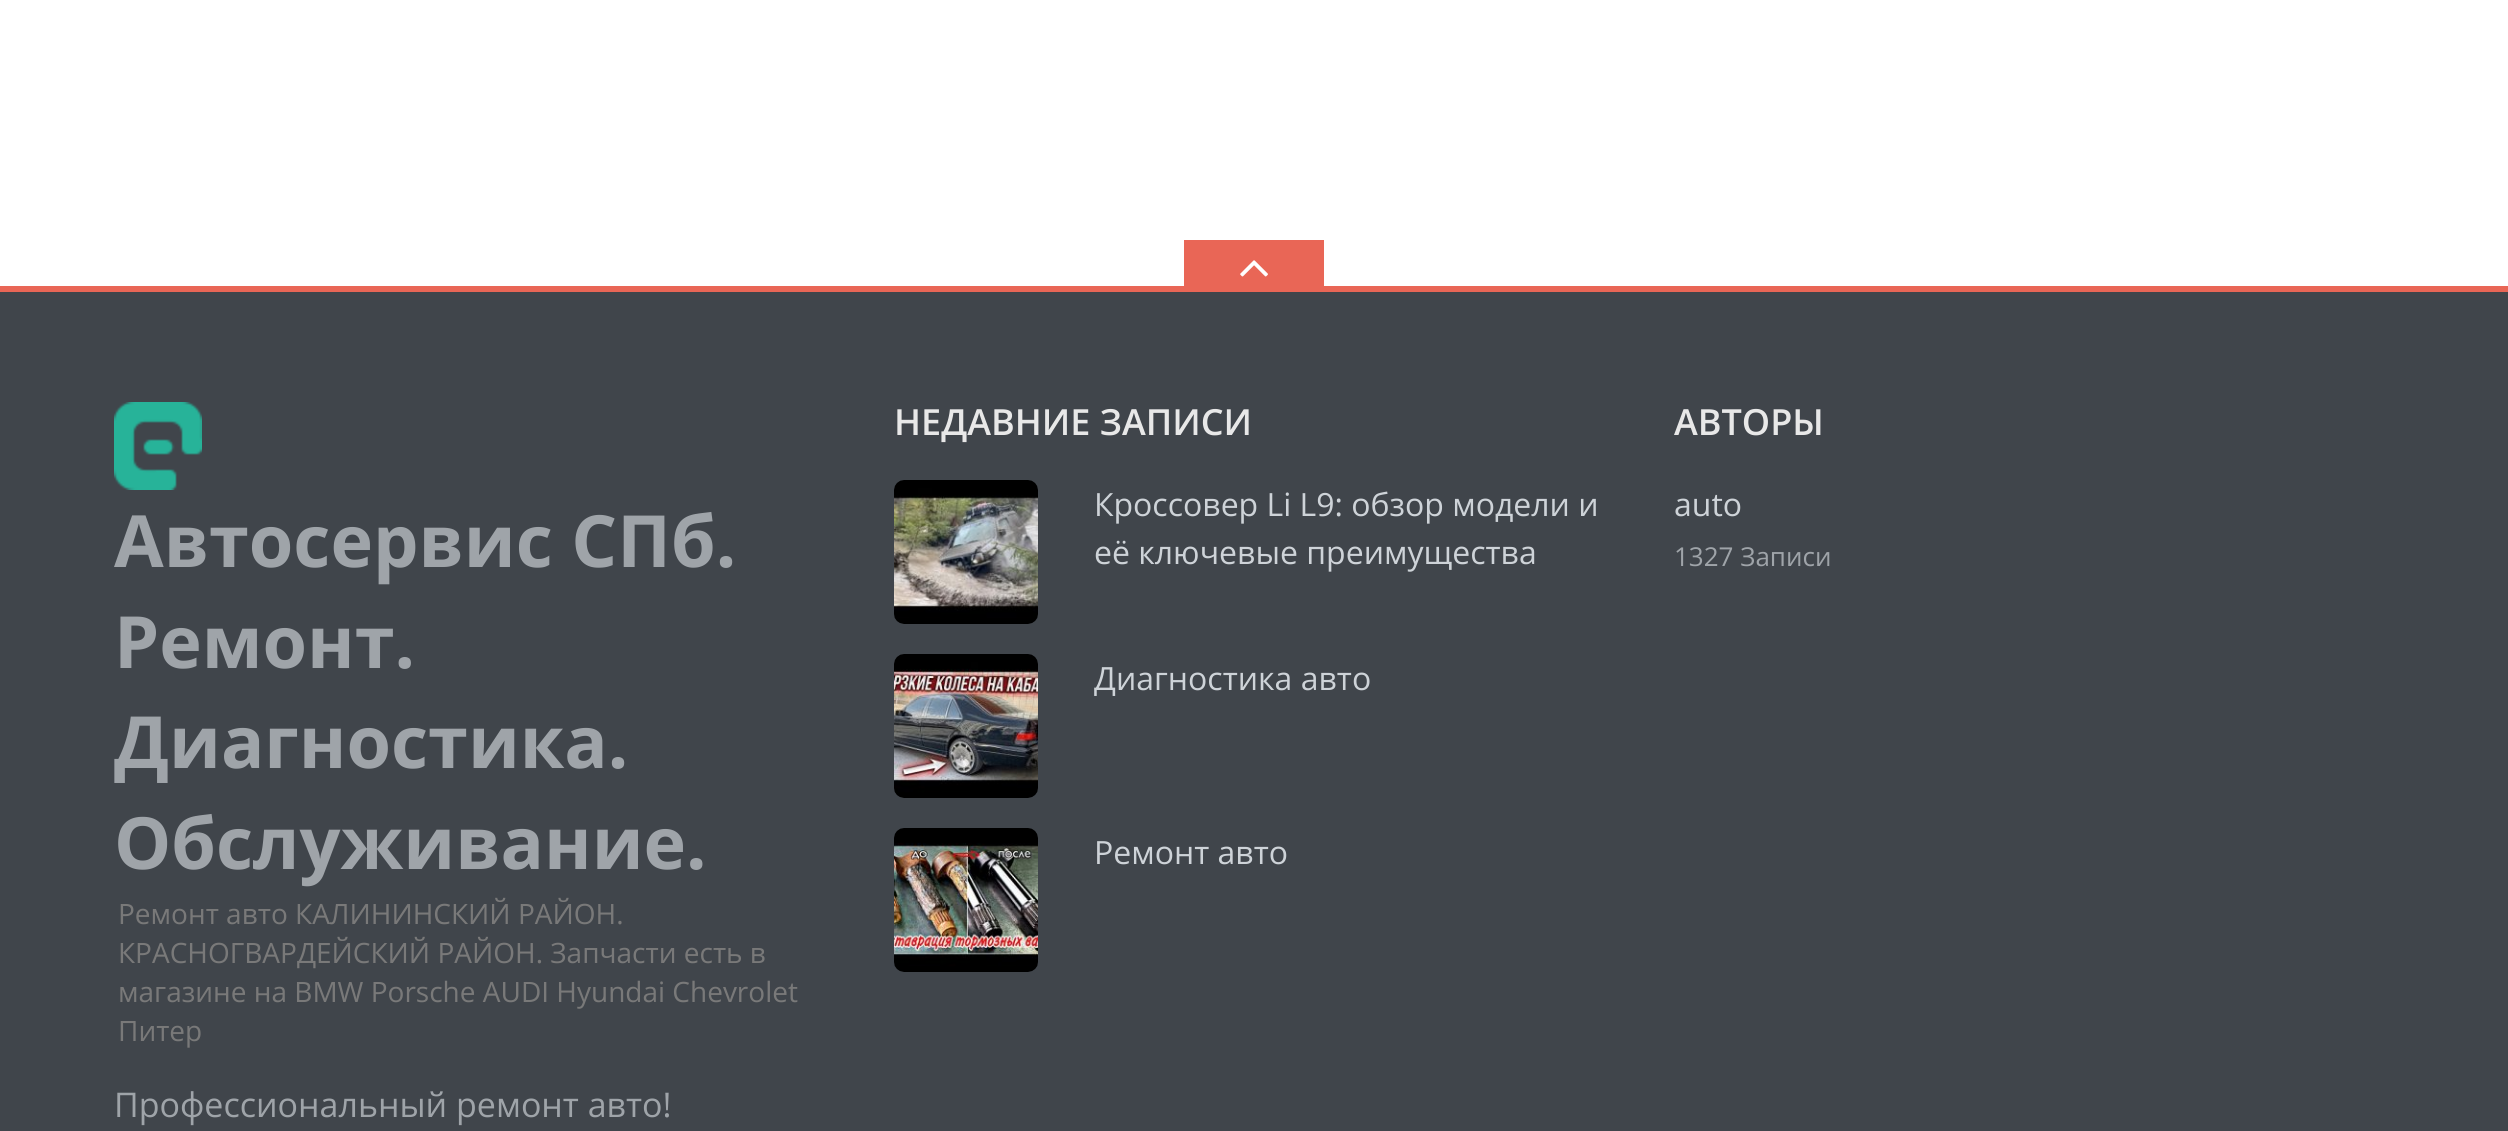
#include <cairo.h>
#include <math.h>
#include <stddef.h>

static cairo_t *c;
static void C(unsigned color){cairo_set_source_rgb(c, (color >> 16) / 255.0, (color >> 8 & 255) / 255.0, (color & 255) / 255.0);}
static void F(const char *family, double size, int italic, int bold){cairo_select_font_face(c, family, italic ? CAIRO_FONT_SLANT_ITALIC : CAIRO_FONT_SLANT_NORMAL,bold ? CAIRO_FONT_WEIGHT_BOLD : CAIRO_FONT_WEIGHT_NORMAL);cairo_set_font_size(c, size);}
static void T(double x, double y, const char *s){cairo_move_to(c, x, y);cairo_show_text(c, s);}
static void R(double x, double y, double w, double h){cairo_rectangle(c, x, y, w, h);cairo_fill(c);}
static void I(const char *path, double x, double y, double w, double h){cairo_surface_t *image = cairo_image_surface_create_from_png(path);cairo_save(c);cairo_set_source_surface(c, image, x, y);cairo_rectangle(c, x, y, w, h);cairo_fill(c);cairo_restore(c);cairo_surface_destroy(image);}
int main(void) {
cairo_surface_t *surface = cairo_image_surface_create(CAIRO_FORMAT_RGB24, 2508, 1131);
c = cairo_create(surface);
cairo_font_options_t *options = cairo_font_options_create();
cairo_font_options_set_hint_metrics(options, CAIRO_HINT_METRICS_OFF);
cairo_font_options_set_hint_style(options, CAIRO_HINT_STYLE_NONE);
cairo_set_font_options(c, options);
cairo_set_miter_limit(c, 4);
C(0xffffff);
cairo_paint(c);
C(0xe96656);
R(0,286,2508,6);
R(1184,240,140,46);
I("1.png",1240,260,28,17);
C(0x40454b);
R(0,292,2508,839);
F("Open Sans SemiBold",36,0,0);
C(0xe8e8e8);
T(894,435,"НЕДАВНИЕ ЗАПИСИ");
I("2.png",894,480,144,144);
F("Open Sans",32,0,0);
C(0xced3d8);
T(1094,516,"Кроссовер Li L9: обзор модели и");
T(1094,564,"её ключевые преимущества");
I("3.png",894,654,144,144);
T(1094,690,"Диагностика авто");
I("4.png",894,828,144,144);
T(1094,864,"Ремонт авто");
F("Open Sans SemiBold",36,0,0);
C(0xe8e8e8);
T(1674,435,"АВТОРЫ");
F("Open Sans",32,0,0);
C(0xced3d8);
T(1674,516,"auto");
F("Open Sans",26,0,0);
C(0x9fa4a9);
T(1674,566,"1327 Записи");
I("5.png",114,402,88,88);
F("Open Sans",72,0,1);
T(114,567,"Автосервис СПб.");
T(114,668,"Ремонт.");
T(114,768,"Диагностика.");
T(114,869,"Обслуживание.");
F("Open Sans",28,0,0);
C(0x797979);
T(118,924,"Ремонт авто КАЛИНИНСКИЙ РАЙОН.");
T(118,963,"КРАСНОГВАРДЕЙСКИЙ РАЙОН. Запчасти есть в");
T(118,1002,"магазине на BMW Porsche AUDI Hyundai Chevrolet");
T(118,1041,"Питер");
F("Open Sans",34,0,0);
C(0x9fa4a9);
T(114,1117,"Профессиональный ремонт авто!");
cairo_surface_write_to_png(surface, "o.png");
cairo_font_options_destroy(options);
cairo_destroy(c);
cairo_surface_destroy(surface);
return 0;
}
